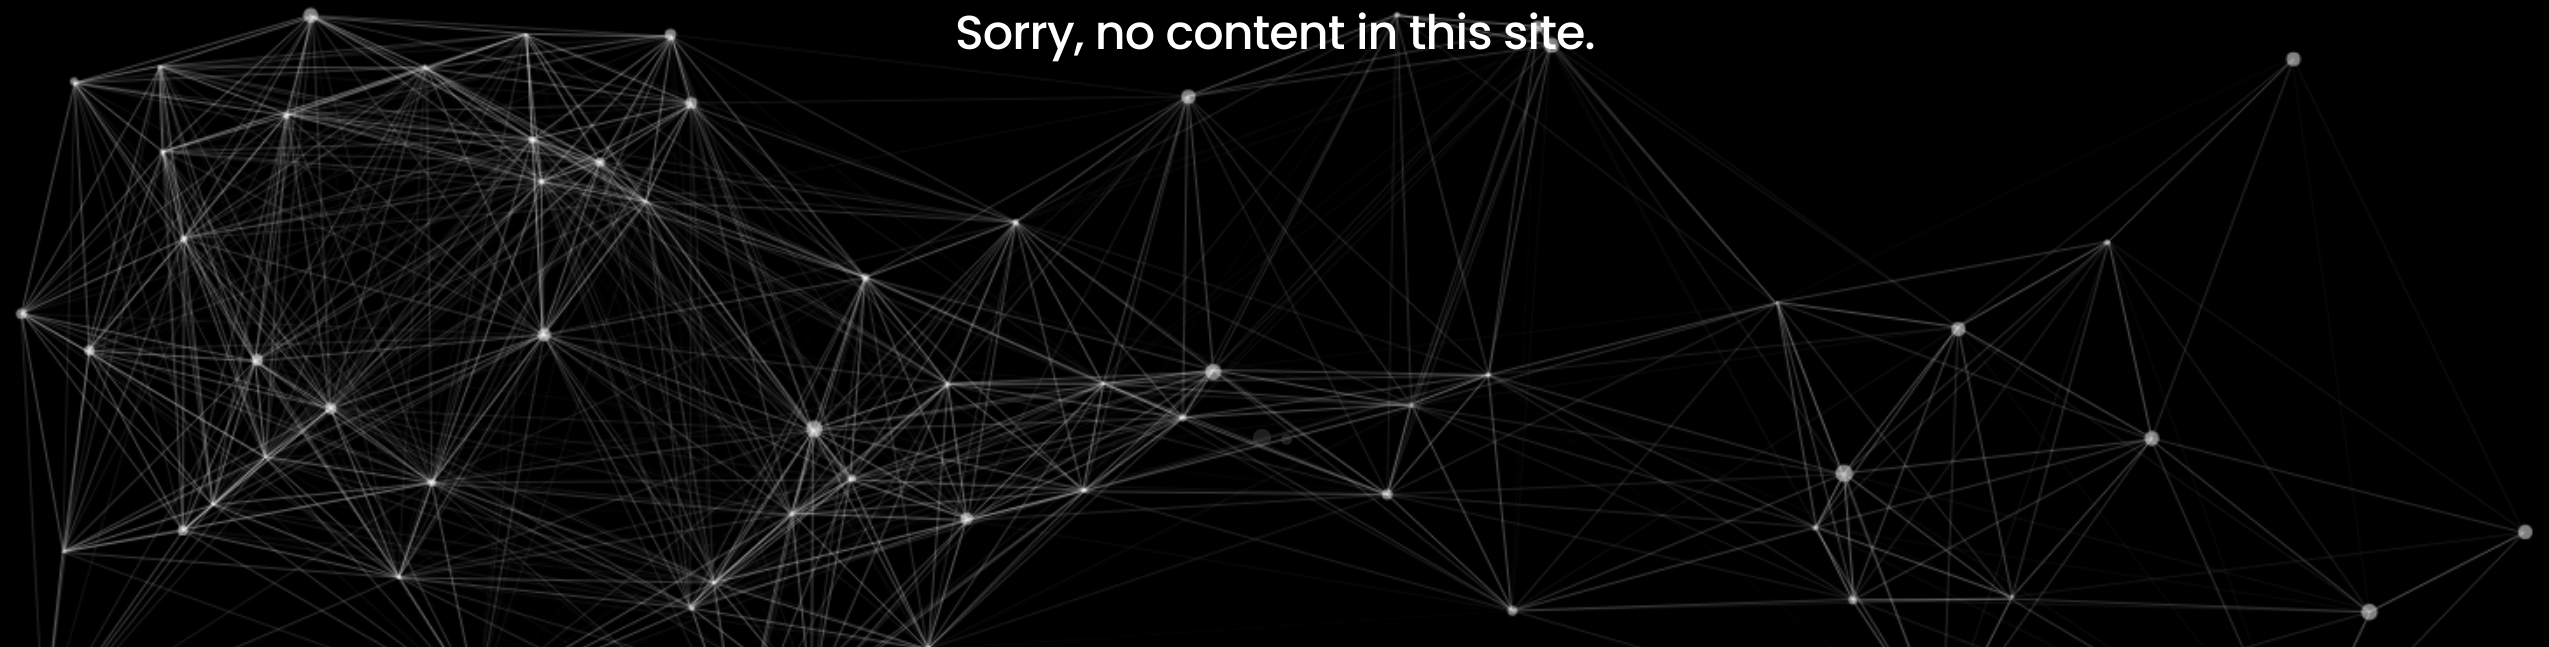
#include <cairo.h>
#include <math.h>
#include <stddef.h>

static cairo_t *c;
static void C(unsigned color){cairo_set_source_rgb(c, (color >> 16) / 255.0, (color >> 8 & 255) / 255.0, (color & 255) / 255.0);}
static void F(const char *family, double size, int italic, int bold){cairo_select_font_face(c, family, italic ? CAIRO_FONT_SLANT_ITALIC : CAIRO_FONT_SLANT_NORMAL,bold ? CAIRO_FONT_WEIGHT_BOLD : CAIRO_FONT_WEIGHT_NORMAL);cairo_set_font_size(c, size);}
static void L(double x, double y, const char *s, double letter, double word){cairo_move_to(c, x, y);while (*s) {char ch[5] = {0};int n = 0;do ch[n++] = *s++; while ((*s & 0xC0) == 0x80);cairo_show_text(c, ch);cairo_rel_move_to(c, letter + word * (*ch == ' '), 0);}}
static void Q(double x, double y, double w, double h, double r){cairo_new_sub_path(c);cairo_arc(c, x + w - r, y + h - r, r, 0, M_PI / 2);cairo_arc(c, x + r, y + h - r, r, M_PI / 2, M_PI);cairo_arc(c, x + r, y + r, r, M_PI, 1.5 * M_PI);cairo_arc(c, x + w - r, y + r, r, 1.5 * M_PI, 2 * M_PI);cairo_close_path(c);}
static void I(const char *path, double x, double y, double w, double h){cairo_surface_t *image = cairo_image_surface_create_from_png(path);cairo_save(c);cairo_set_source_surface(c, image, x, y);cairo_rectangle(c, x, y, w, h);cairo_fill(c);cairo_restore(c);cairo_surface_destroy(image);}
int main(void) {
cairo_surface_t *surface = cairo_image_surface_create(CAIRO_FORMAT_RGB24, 2549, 647);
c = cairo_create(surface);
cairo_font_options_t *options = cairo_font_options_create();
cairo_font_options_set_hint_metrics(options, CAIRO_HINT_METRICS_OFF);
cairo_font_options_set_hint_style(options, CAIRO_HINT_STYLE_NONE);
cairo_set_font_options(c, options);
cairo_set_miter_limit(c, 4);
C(0x000000);
cairo_paint(c);
I("1.png",15,6,2518,641);
F("Poppins Medium",47.6,0,0);
C(0xffffff);
L(955,49,"Sorry, no content in this site.",-.95,0);
cairo_set_source_rgba(c,0.4,0.4,0.4,0.3);
Q(1253,429,18,17,8.5);
cairo_fill(c);
cairo_arc(c,1286.5,439.5,5.5,0,2 * M_PI);
cairo_fill(c);
cairo_surface_write_to_png(surface, "o.png");
cairo_font_options_destroy(options);
cairo_destroy(c);
cairo_surface_destroy(surface);
return 0;
}
